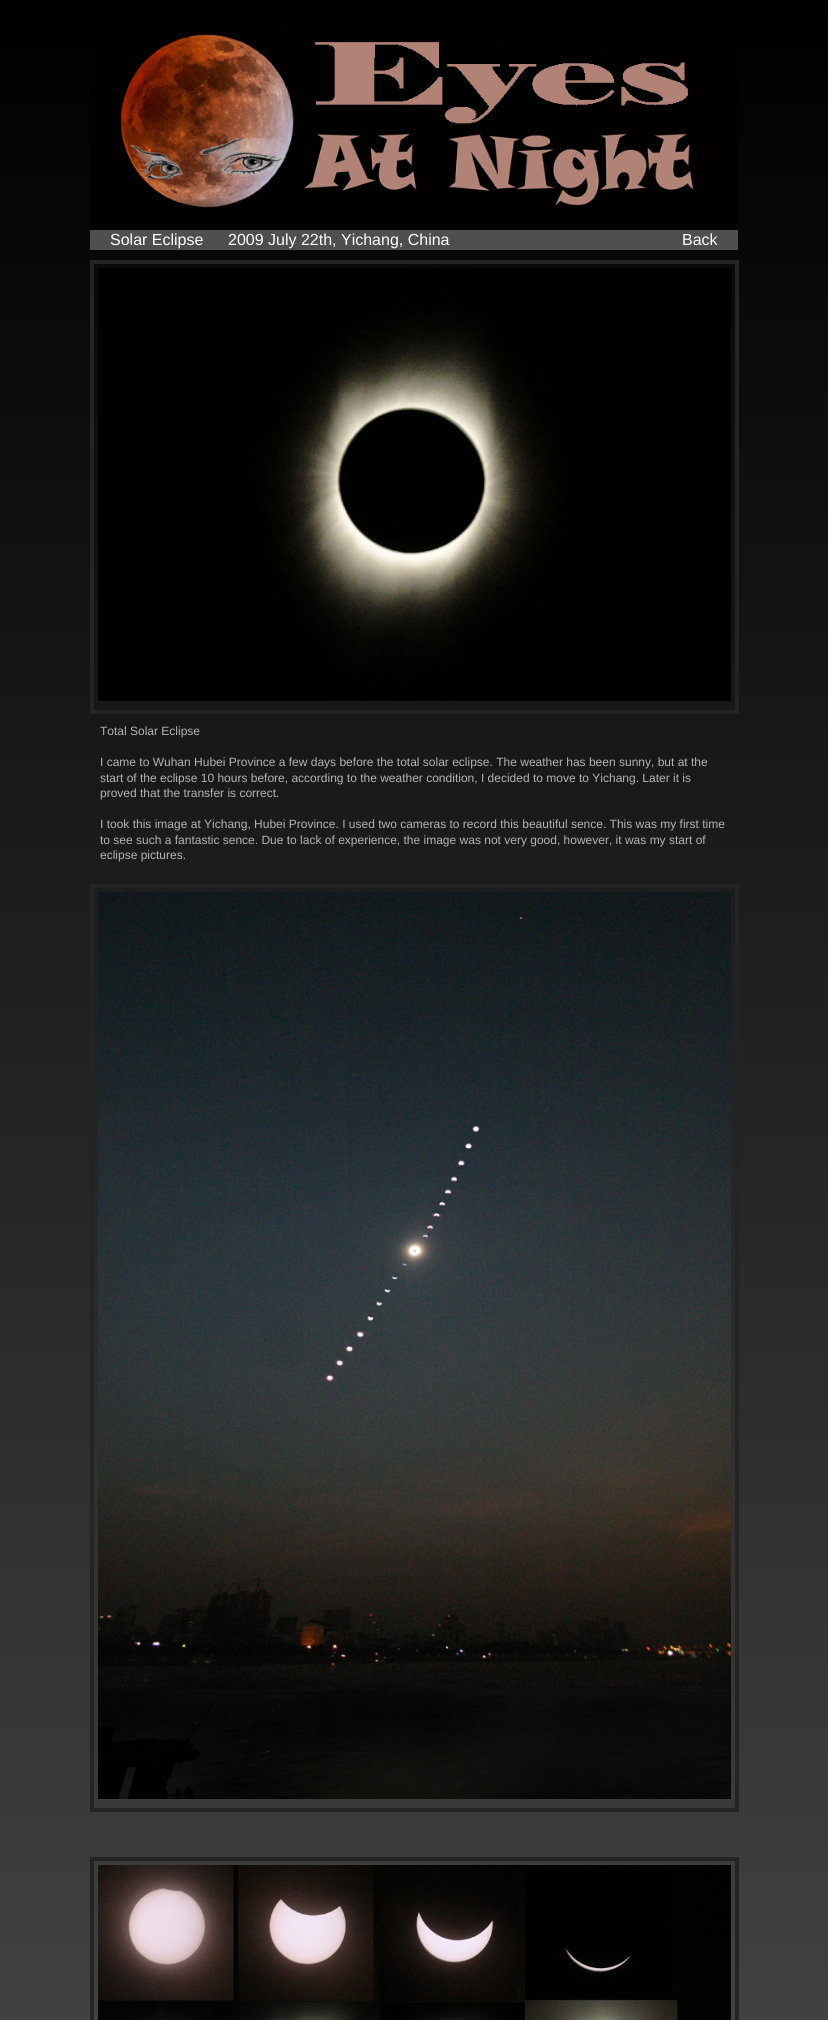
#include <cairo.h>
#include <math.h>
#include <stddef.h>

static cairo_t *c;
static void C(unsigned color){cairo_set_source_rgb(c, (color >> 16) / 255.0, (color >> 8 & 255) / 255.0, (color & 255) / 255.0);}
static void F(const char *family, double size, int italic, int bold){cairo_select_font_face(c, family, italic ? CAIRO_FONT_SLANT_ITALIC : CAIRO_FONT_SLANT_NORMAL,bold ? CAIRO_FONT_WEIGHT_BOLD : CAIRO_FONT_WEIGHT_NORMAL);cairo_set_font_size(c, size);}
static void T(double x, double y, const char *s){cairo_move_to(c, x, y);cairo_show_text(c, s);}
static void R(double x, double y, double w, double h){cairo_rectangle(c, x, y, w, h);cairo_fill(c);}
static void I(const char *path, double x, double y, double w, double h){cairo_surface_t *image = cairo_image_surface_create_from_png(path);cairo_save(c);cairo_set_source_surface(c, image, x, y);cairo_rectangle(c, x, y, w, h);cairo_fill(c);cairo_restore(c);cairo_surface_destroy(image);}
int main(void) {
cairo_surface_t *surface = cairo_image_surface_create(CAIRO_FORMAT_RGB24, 828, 2020);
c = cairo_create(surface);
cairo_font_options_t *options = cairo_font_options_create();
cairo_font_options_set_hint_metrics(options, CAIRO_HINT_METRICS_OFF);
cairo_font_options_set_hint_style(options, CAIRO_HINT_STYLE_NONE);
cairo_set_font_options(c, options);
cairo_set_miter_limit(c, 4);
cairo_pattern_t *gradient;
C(0xffffff);
cairo_paint(c);
gradient = cairo_pattern_create_linear(0,0,0,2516);
cairo_pattern_add_color_stop_rgba(gradient,0,0,0,0,1);
cairo_pattern_add_color_stop_rgba(gradient,1,0.318,0.318,0.318,1);
cairo_set_source(c,gradient);
cairo_pattern_destroy(gradient);
R(0,0,828,2020);
I("1.png",90,27,648,203);
gradient = cairo_pattern_create_linear(90,230,90,250);
cairo_pattern_add_color_stop_rgba(gradient,0,0.314,0.314,0.314,1);
cairo_pattern_add_color_stop_rgba(gradient,1,0.302,0.302,0.302,1);
cairo_set_source(c,gradient);
cairo_pattern_destroy(gradient);
R(90,230,648,20);
F("Liberation Sans",16,0,0);
C(0xffffff);
T(110,245,"Solar Eclipse");
T(228,245,"2009 July 22th, Yichang, China");
T(682,245,"Back");
cairo_rectangle(c,92,262,645,450);
C(0x242424);
cairo_set_line_width(c,4);
cairo_stroke(c);
I("2.png",98,268,633,433);
F("Liberation Sans",12,0,0);
C(0xb7b3b4);
T(100,735,"Total Solar Eclipse");
T(100,766,"I came to Wuhan Hubei Province a few days before the total solar eclipse. The weather has been sunny, but at the");
T(100,782,"start of the eclipse 10 hours before, according to the weather condition, I decided to move to Yichang. Later it is");
T(100,797,"proved that the transfer is correct.");
T(100,828,"I took this image at Yichang, Hubei Province. I used two cameras to record this beautiful sence. This was my first time");
T(100,844,"to see such a fantastic sence. Due to lack of experience, the image was not very good, however, it was my start of");
T(100,859,"eclipse pictures.");
cairo_rectangle(c,92,886,645,924);
C(0x242424);
cairo_stroke(c);
I("3.png",98,892,633,907);
cairo_rectangle(c,92,1859,645,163);
cairo_stroke(c);
I("4.png",98,1865,633,155);
cairo_surface_write_to_png(surface, "o.png");
cairo_font_options_destroy(options);
cairo_destroy(c);
cairo_surface_destroy(surface);
return 0;
}
